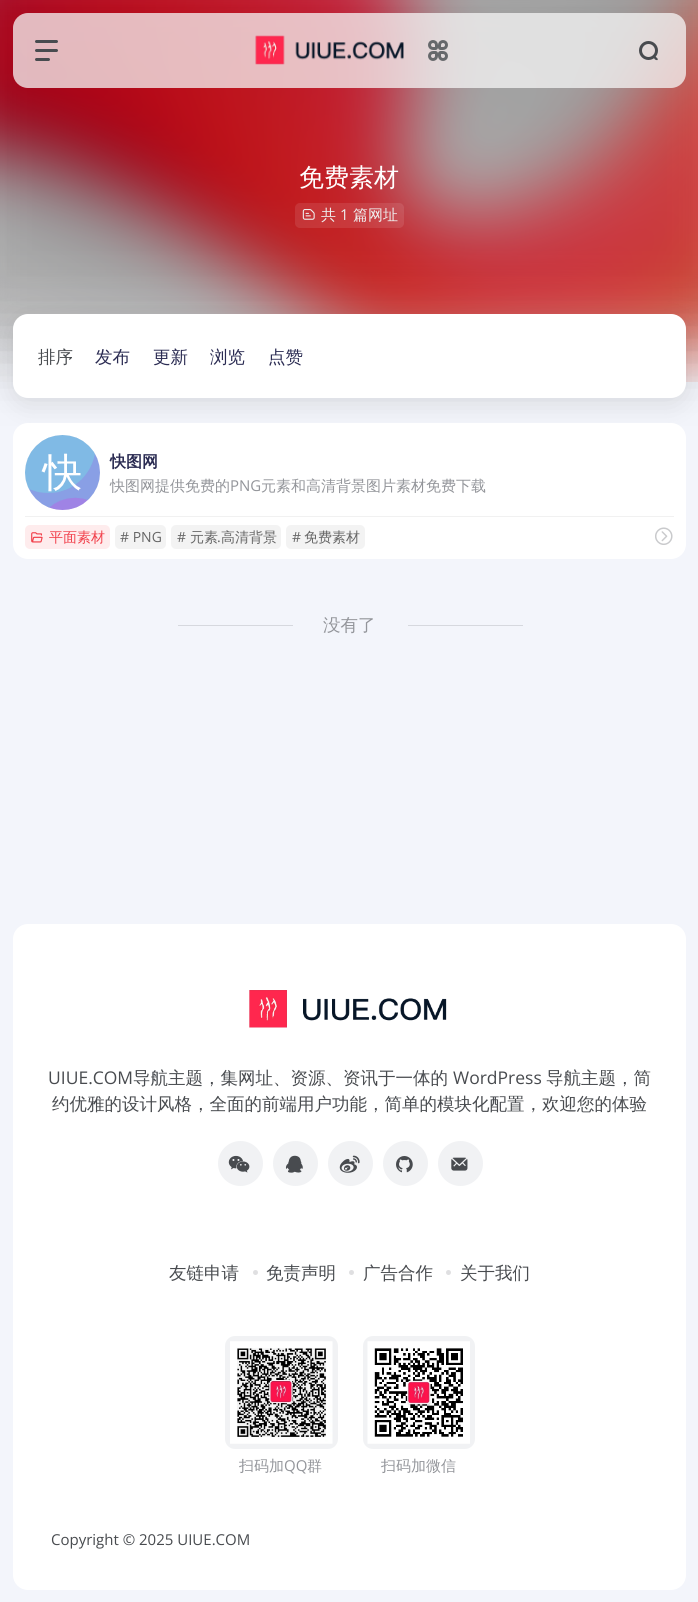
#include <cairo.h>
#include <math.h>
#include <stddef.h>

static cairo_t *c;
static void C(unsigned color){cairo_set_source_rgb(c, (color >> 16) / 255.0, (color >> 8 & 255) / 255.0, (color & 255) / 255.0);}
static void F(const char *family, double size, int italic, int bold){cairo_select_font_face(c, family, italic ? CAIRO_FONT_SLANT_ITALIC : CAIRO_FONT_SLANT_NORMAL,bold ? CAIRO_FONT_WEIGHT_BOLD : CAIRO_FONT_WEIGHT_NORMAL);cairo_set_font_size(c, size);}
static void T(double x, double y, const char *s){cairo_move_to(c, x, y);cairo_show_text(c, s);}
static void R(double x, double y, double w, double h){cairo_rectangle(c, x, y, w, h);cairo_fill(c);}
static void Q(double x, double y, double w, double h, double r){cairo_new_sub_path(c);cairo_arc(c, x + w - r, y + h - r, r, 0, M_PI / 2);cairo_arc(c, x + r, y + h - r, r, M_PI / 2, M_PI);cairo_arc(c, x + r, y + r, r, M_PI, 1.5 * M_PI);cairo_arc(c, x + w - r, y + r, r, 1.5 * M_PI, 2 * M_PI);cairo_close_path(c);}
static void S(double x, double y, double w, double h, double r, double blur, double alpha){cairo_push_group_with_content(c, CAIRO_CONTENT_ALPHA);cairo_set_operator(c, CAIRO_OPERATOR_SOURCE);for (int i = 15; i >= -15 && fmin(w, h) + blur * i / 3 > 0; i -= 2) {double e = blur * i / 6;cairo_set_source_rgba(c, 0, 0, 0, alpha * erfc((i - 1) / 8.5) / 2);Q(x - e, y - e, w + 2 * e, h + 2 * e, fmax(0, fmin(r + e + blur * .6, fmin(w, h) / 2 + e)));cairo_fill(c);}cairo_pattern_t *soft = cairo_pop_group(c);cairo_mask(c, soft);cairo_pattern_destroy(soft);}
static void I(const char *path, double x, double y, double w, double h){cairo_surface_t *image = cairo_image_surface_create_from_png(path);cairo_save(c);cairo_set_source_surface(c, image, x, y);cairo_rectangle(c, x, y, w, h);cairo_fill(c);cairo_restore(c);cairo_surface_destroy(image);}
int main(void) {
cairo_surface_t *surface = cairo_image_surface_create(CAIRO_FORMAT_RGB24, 698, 1602);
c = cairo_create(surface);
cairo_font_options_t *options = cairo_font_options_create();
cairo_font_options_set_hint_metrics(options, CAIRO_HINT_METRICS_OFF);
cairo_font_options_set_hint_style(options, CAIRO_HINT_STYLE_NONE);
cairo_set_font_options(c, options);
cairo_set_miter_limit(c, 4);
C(0xf3f5fb);
cairo_paint(c);
I("2.png",0,0,698,382);
C(0x000000);
S(-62,-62,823,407,0,37.5,.2);
cairo_set_source_rgba(c,0.961,0.961,0.961,0.75);
Q(13,13,673,75,15);
cairo_fill(c);
C(0x484b4f);
Q(35,40,23,3,1.5);
cairo_fill(c);
Q(35,49,23,3,1.5);
cairo_fill(c);
Q(35,58,15,3,1.5);
cairo_fill(c);
I("1.png",255,35,149,30);
cairo_new_path(c);
cairo_move_to(c,433,41.5);
cairo_curve_to(c,435,41.5,436.5,43,436.5,45);
cairo_line_to(c,436.5,47.5);
cairo_curve_to(c,436.5,48,436,48.5,435.5,48.5);
cairo_line_to(c,433,48.5);
cairo_curve_to(c,431,48.5,429.5,47,429.5,45);
cairo_curve_to(c,429.5,43,431,41.5,433,41.5);
cairo_close_path(c);
C(0x66686b);
cairo_set_line_width(c,3);
cairo_stroke(c);
cairo_new_path(c);
cairo_move_to(c,443,41.5);
cairo_curve_to(c,445,41.5,446.5,43,446.5,45);
cairo_curve_to(c,446.5,47,445,48.5,443,48.5);
cairo_line_to(c,440.5,48.5);
cairo_curve_to(c,440,48.5,439.5,48,439.5,47.5);
cairo_line_to(c,439.5,45);
cairo_curve_to(c,439.5,43,441,41.5,443,41.5);
cairo_close_path(c);
cairo_stroke(c);
cairo_new_path(c);
cairo_move_to(c,433,52.5);
cairo_line_to(c,435.5,52.5);
cairo_curve_to(c,436,52.5,436.5,53,436.5,53.5);
cairo_line_to(c,436.5,56);
cairo_curve_to(c,436.5,58,435,59.5,433,59.5);
cairo_curve_to(c,431,59.5,429.5,58,429.5,56);
cairo_curve_to(c,429.5,54,431,52.5,433,52.5);
cairo_close_path(c);
cairo_stroke(c);
cairo_new_path(c);
cairo_move_to(c,440.5,52.5);
cairo_line_to(c,443,52.5);
cairo_curve_to(c,445,52.5,446.5,54,446.5,56);
cairo_curve_to(c,446.5,58,445,59.5,443,59.5);
cairo_curve_to(c,441,59.5,439.5,58,439.5,56);
cairo_line_to(c,439.5,53.5);
cairo_curve_to(c,439.5,53,440,52.5,440.5,52.5);
cairo_close_path(c);
cairo_stroke(c);
cairo_arc(c,648.5,50.5,8,0,2 * M_PI);
C(0x484b4f);
cairo_stroke(c);
cairo_new_path(c);
cairo_move_to(c,655.5,56.5);
cairo_line_to(c,657.5,58.5);
cairo_curve_to(c,658.5,60.5,656.5,60.5,655,59.5);
cairo_line_to(c,653.5,57.5);
cairo_curve_to(c,653,56.5,654.5,55.5,655.5,56.5);
cairo_close_path(c);
cairo_fill(c);
F("WenQuanYi Zen Hei Medium",25,0,0);
C(0xffffff);
T(299,186,"免费素材");
cairo_set_source_rgba(c,1,1,1,0.1);
Q(295,203,109,25,5);
cairo_fill(c);
I("3.png",302,209,13,11);
F("WenQuanYi Zen Hei Medium",15,0,0);
C(0xeeeeee);
T(321,220,"共");
F("Open Sans",15,0,0);
T(340,220,"1");
F("WenQuanYi Zen Hei Medium",15,0,0);
T(353,220,"篇网址");
C(0x000000);
S(13,320,673,84,15,12.5,.1);
C(0xffffff);
Q(13,314,673,84,15);
cairo_fill(c);
F("WenQuanYi Zen Hei Medium",17.5,0,0);
C(0x484b4f);
T(38,363,"排序");
C(0x2a2b52);
T(95,363,"发布");
T(153,363,"更新");
T(210,363,"浏览");
T(268,363,"点赞");
C(0xffffff);
Q(13,423,673,136,15);
cairo_fill(c);
C(0xf1f1f1);
cairo_arc(c,62.5,472.5,37.5,0,2 * M_PI);
cairo_fill(c);
I("4.png",25,435,75,75);
F("WenQuanYi Zen Hei",16,0,1);
C(0x2a2b52);
T(110,467,"快图网");
F("WenQuanYi Zen Hei Medium",15,0,0);
C(0x93959a);
T(110,491,"快图网提供免费的");
F("Open Sans",15,0,0);
T(230,491,"PNG");
F("WenQuanYi Zen Hei Medium",15,0,0);
T(261,491,"元素和高清背景图片素材免费下载");
C(0xf1f1f1);
R(25,516,649,1);
C(0xfeeced);
Q(25,525,85,24,5);
cairo_fill(c);
I("5.png",31,532,12,11);
F("WenQuanYi Zen Hei Medium",14,0,0);
C(0xf1404b);
T(49,542,"平面素材");
C(0xf3f3f3);
Q(115,525,51,24,5);
cairo_fill(c);
F("Open Sans",14,0,0);
C(0x666666);
T(120,542,"# PNG");
C(0xf3f3f3);
Q(171,525,110,24,5);
cairo_fill(c);
C(0x666666);
T(177,542,"#");
F("WenQuanYi Zen Hei Medium",14,0,0);
T(190,542,"元素");
F("Open Sans",14,0,0);
T(217,542,".");
F("WenQuanYi Zen Hei Medium",14,0,0);
T(221,542,"高清背景");
C(0xf3f3f3);
Q(286,525,79,24,5);
cairo_fill(c);
F("Open Sans",14,0,0);
C(0x666666);
T(292,542,"#");
F("WenQuanYi Zen Hei Medium",14,0,0);
T(304,542,"免费素材");
I("6.png",655,527,18,18);
C(0xd6d8de);
R(178,625,115,1);
F("WenQuanYi Zen Hei Medium",17.5,0,0);
C(0x93959a);
T(323,631,"没有了");
C(0xd6d8de);
R(408,625,115,1);
C(0xffffff);
Q(13,924,673,666,15);
cairo_fill(c);
I("7.png",249,990,198,38);
F("Open Sans",17.5,0,0);
C(0x484b4f);
T(48,1084,"UIUE.COM");
F("WenQuanYi Zen Hei Medium",17.5,0,0);
T(133,1084,"导航主题，集网址、资源、资讯于一体的");
F("Open Sans",17.5,0,0);
T(453,1084,"WordPress");
F("WenQuanYi Zen Hei Medium",17.5,0,0);
T(546,1084,"导航主题，简");
T(52,1110,"约优雅的设计风格，全面的前端用户功能，简单的模块化配置，欢迎您的体验");
C(0xf1f2f4);
cairo_new_path(c);
cairo_arc(c,240.5,1163.5,22.5,0,2 * M_PI);
cairo_fill(c);
I("8.png",228,1155,22,18);
cairo_arc(c,295.5,1163.5,22.5,0,2 * M_PI);
cairo_fill(c);
I("9.png",285,1155,18,18);
cairo_arc(c,350.5,1163.5,22.5,0,2 * M_PI);
cairo_fill(c);
I("10.png",339,1155,21,18);
cairo_arc(c,405.5,1163.5,22.5,0,2 * M_PI);
cairo_fill(c);
I("11.png",396,1156,17,17);
cairo_arc(c,460.5,1163.5,22.5,0,2 * M_PI);
cairo_fill(c);
I("12.png",451,1157,17,14);
C(0x484b4f);
T(169,1279,"友链申请");
C(0xdfdfe1);
cairo_new_path(c);
cairo_arc(c,255.5,1272.5,2.5,0,2 * M_PI);
cairo_fill(c);
C(0x484b4f);
T(266,1279,"免责声明");
C(0xdfdfe1);
cairo_new_path(c);
cairo_arc(c,351.5,1272.5,2.5,0,2 * M_PI);
cairo_fill(c);
C(0x484b4f);
T(363,1279,"广告合作");
C(0xdfdfe1);
cairo_new_path(c);
cairo_arc(c,448.5,1272.5,2.5,0,2 * M_PI);
cairo_fill(c);
C(0x484b4f);
T(460,1279,"关于我们");
C(0xf1f2f4);
Q(225,1336,113,113,10);
cairo_fill(c);
I("13.png",230,1341,103,103);
F("WenQuanYi Zen Hei Medium",15,0,0);
C(0x93959a);
T(239,1471,"扫码加");
F("Open Sans",15,0,0);
T(284,1471,"QQ");
F("WenQuanYi Zen Hei Medium",15,0,0);
T(307,1471,"群");
C(0xf1f2f4);
Q(363,1336,112,113,10);
cairo_fill(c);
I("14.png",367,1341,103,103);
C(0x93959a);
T(381,1471,"扫码加微信");
F("Open Sans",15,0,0);
C(0x484b4f);
T(51,1545,"Copyright © 2025 UIUE.COM");
cairo_surface_write_to_png(surface, "o.png");
cairo_font_options_destroy(options);
cairo_destroy(c);
cairo_surface_destroy(surface);
return 0;
}
